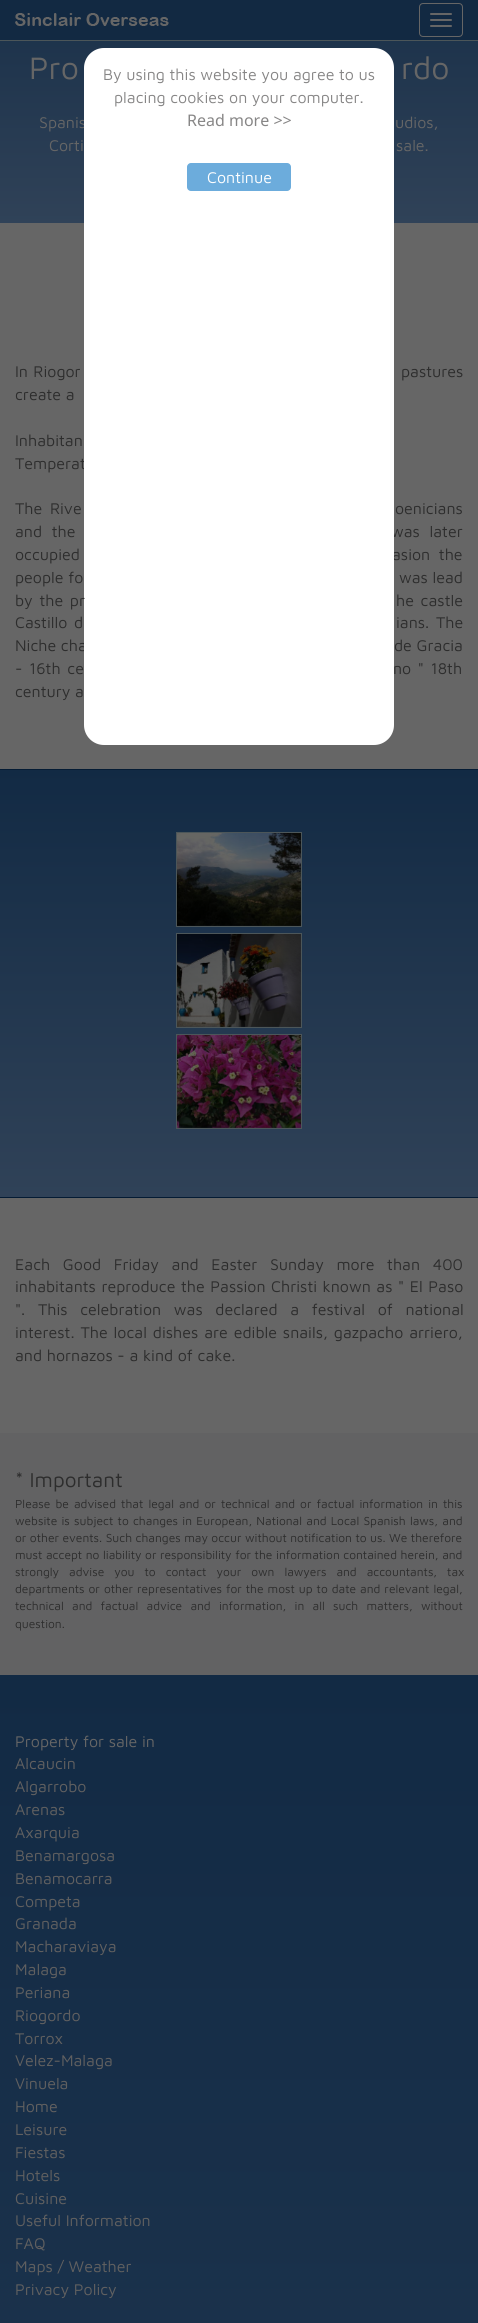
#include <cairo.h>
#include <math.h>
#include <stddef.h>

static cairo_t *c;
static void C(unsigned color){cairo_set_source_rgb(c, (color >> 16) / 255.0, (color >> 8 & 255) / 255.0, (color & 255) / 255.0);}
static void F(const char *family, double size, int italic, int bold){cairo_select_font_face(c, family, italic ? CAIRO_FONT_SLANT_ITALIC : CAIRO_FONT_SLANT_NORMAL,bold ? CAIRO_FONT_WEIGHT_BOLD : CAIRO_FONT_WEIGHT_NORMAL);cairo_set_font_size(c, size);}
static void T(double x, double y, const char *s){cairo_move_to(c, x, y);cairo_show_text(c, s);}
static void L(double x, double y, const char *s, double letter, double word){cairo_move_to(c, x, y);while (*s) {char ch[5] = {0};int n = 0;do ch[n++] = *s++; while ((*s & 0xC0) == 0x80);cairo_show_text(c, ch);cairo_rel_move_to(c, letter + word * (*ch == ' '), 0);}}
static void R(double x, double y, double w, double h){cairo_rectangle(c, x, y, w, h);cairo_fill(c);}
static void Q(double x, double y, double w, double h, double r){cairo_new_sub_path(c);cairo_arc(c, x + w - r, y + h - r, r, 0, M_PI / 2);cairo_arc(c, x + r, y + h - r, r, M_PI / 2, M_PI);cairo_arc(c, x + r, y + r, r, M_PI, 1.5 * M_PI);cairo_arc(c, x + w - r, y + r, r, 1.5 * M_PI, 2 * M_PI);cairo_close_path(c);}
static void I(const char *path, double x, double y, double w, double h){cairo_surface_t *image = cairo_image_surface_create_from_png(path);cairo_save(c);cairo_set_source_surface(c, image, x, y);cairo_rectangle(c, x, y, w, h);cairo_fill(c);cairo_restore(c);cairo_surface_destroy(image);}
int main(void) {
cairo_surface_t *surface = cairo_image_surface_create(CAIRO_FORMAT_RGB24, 478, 2323);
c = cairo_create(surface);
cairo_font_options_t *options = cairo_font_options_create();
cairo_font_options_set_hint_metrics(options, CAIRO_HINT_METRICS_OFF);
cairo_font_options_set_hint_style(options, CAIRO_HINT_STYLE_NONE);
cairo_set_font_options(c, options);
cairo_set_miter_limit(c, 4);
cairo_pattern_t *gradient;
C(0xffffff);
cairo_paint(c);
C(0x122942);
R(0,0,478,40);
C(0x4c5659);
R(0,40,478,1);
I("1.png",15,13,154,13);
Q(419.5,3.5,43,33,3.5);
C(0x666666);
cairo_set_line_width(c,1);
cairo_stroke(c);
Q(430,13,22,2,1);
cairo_fill(c);
Q(430,19,22,2,1);
cairo_fill(c);
Q(430,25,22,2,1);
cairo_fill(c);
gradient = cairo_pattern_create_linear(239,-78,239,223);
cairo_pattern_add_color_stop_rgba(gradient,0,0.071,0.165,0.267,1);
cairo_pattern_add_color_stop_rgba(gradient,1,0.188,0.259,0.345,1);
cairo_set_source(c,gradient);
cairo_pattern_destroy(gradient);
R(0,41,478,182);
F("Maven Pro",32,0,0);
C(0x666666);
T(29,79,"Pro");
T(401,79,"rdo");
F("Maven Pro",16,0,0);
T(39,128,"Spanis");
T(395,128,"udios,");
T(49,151,"Corti");
T(396,151,"sale.");
R(0,223,478,546);
C(0x2d2d2d);
T(15,469,"Temperat");
L(391,537,"was later",0,5);
L(392,560,"asion the",0,4);
T(15,651,"Niche cha");
C(0xffffff);
Q(84,48,310,697,20);
cairo_fill(c);
C(0x878686);
T(103,80,"By using this website you agree to us");
T(114,103,"placing cookies on your computer.");
F("Noto Sans",16,0,0);
T(187,126,"Read more >>");
C(0x6cacdc);
Q(187,163,104,28,4);
cairo_fill(c);
F("Maven Pro",16,0,0);
C(0xffffff);
T(207,183,"Continue");
C(0x2d2d2d);
L(15,377,"In Riogor",0,.75);
L(401,377,"pastures",0,.75);
T(15,400,"create a");
T(15,446,"Inhabitan");
L(15,514,"The Rive",0,3);
L(395,514,"oenicians",0,3);
L(15,537,"and the",0,5);
L(15,560,"occupied",0,4);
T(15,583,"people fo");
T(399,583,"was lead");
L(15,606,"by the pr",0,2);
L(396,606,"he castle",0,2);
L(15,628,"Castillo d",0,2);
L(396,628,"ians. The",0,2);
T(394,651,"de Gracia");
L(15,674,"- 16th ce",0,2);
L(393,674,"no \" 18th",0,2);
T(15,697,"century a");
gradient = cairo_pattern_create_linear(239,770,239,1197);
cairo_pattern_add_color_stop_rgba(gradient,0,0.071,0.165,0.267,1);
cairo_pattern_add_color_stop_rgba(gradient,1,0.188,0.259,0.345,1);
cairo_set_source(c,gradient);
cairo_pattern_destroy(gradient);
R(0,770,478,427);
C(0x041b34);
R(0,769,478,1);
R(0,1197,478,1);
cairo_rectangle(c,176.5,832.5,125,94);
C(0x4c5659);
cairo_stroke(c);
I("2.png",177,833,124,93);
cairo_rectangle(c,176.5,933.5,125,94);
cairo_stroke(c);
I("3.png",177,934,124,93);
cairo_rectangle(c,176.5,1034.5,125,94);
cairo_stroke(c);
I("4.png",177,1035,124,93);
C(0x666666);
R(0,1198,478,235);
C(0x2d2d2d);
L(15,1270,"Each Good Friday and Easter Sunday more than 400",0,8);
L(15,1292,"inhabitants reproduce the Passion Christi known as \" El Paso",0,.9);
L(15,1315,"\". This celebration was declared a festival of national",0,8);
L(15,1338,"interest. The local dishes are edible snails, gazpacho arriero,",0,1.25);
T(15,1361,"and hornazos - a kind of cake.");
C(0x626263);
R(0,1433,478,242);
F("Maven Pro",20.75,0,0);
C(0x2d2d2d);
T(15,1487,"* Important");
F("Maven Pro",12,0,0);
L(15,1508,"Please be advised that legal and or technical and or factual information in this",0,1.6);
L(15,1525,"website is subject to changes in European, National and Local Spanish laws, and",0,.75);
T(15,1542,"or other events. Such changes may occur without notification to us. We therefore");
L(15,1559,"must accept no liability or responsibility for the information contained herein, and",0,.1);
L(15,1576,"strongly advise you to contact your own lawyers and accountants, tax",0,6.5);
L(15,1593,"departments or other representatives for the most up to date and relevant legal,",0,.5);
L(15,1610,"technical and factual advice and information, in all such matters, without",0,4.75);
T(15,1628,"question.");
gradient = cairo_pattern_create_linear(239,1675,239,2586);
cairo_pattern_add_color_stop_rgba(gradient,0,0.071,0.165,0.267,1);
cairo_pattern_add_color_stop_rgba(gradient,1,0.114,0.204,0.306,1);
cairo_set_source(c,gradient);
cairo_pattern_destroy(gradient);
R(0,1675,478,648);
F("Maven Pro",16,0,0);
C(0x666666);
T(15,1747,"Property for sale in");
C(0x616060);
T(15,1769,"Alcaucin");
T(15,1792,"Algarrobo");
T(15,1815,"Arenas");
T(15,1838,"Axarquia");
T(15,1861,"Benamargosa");
T(15,1884,"Benamocarra");
T(15,1907,"Competa");
T(15,1929,"Granada");
T(15,1952,"Macharaviaya");
T(15,1975,"Malaga");
T(15,1998,"Periana");
T(15,2021,"Riogordo");
T(15,2044,"Torrox");
T(15,2066,"Velez-Malaga");
T(15,2089,"Vinuela");
T(15,2112,"Home");
T(15,2135,"Leisure");
T(15,2158,"Fiestas");
T(15,2181,"Hotels");
T(15,2204,"Cuisine");
T(15,2226,"Useful Information");
T(15,2249,"FAQ");
T(15,2272,"Maps / Weather");
T(15,2295,"Privacy Policy");
cairo_surface_write_to_png(surface, "o.png");
cairo_font_options_destroy(options);
cairo_destroy(c);
cairo_surface_destroy(surface);
return 0;
}
